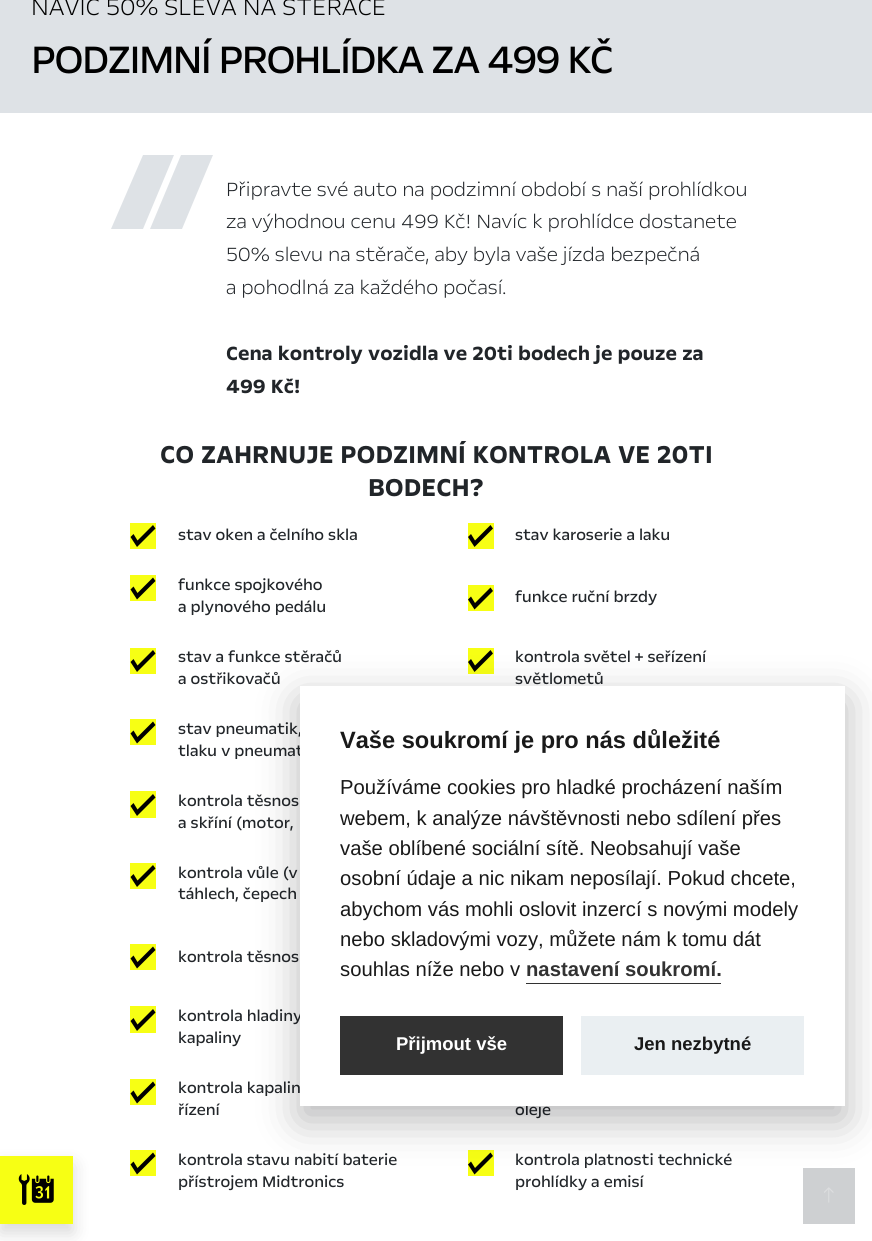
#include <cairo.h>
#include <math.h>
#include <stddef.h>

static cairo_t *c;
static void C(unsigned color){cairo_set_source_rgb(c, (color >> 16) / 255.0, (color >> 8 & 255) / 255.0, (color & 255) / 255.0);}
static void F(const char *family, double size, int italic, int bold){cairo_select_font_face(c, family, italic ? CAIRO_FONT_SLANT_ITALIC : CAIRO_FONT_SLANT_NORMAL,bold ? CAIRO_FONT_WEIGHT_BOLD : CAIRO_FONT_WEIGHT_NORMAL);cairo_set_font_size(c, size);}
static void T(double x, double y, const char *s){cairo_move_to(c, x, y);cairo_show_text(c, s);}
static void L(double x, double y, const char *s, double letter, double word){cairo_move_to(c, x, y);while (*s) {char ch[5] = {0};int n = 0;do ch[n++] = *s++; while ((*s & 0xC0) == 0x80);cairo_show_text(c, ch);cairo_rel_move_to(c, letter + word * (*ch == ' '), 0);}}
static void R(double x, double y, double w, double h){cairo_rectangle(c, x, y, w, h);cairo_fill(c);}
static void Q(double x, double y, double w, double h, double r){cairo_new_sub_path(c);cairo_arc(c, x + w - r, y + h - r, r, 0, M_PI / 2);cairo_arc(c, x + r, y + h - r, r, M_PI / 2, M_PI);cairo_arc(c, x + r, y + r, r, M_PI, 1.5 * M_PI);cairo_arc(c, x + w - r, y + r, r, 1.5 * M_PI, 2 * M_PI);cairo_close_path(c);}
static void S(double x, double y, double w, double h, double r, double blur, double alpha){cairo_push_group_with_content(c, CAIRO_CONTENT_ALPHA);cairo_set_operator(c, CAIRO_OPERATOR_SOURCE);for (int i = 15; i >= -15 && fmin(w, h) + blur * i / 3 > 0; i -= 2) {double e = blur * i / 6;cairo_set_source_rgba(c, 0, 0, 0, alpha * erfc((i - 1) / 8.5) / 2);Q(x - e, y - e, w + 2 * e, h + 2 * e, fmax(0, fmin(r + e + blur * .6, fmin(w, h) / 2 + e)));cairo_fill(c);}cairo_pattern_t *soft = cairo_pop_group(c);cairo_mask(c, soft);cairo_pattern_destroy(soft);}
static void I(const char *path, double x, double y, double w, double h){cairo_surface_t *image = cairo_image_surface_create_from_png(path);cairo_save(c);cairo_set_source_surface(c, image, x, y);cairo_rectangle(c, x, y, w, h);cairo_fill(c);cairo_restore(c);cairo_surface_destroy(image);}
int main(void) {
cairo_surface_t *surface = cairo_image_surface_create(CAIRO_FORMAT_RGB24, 872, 1241);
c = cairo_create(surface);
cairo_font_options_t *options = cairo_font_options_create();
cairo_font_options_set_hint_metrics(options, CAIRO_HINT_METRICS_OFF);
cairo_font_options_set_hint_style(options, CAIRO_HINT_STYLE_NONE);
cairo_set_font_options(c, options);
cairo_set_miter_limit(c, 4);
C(0xffffff);
cairo_paint(c);
C(0xdee2e6);
R(0,0,872,113);
F("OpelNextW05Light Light",26.25,0,0);
C(0x000000);
T(31,15,"NAVÍC 50% SLEVA NA STĚRAČE");
F("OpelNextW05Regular",43.75,0,0);
L(31,73,"PODZIMNÍ PROHLÍDKA ZA 499 KČ",-1.75,0);
C(0xf7ff14);
L(620,73,"",-1.75,0);
C(0x000000);
S(0,1165,73,68,0,9,.15);
C(0xf7ff14);
R(0,1156,73,68);
I("1.png",18,1174,36,31);
C(0xdee2e6);
cairo_new_path(c);
cairo_move_to(c,111,229);
cairo_line_to(c,143,229);
cairo_line_to(c,174,155);
cairo_line_to(c,143,155);
cairo_close_path(c);
cairo_move_to(c,150,229);
cairo_line_to(c,182,229);
cairo_line_to(c,213,155);
cairo_line_to(c,181,155);
cairo_close_path(c);
cairo_fill(c);
F("OpelNextW05Light Light",21.9,0,0);
C(0x212529);
T(226,196,"Připravte své auto na podzimní období s naší prohlídkou");
T(226,228,"za výhodnou cenu 499 Kč! Navíc k prohlídce dostanete");
T(226,261,"50% slevu na stěrače, aby byla vaše jízda bezpečná");
T(226,294,"a pohodlná za každého počasí.");
F("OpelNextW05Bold",21.9,0,1);
T(226,360,"Cena kontroly vozidla ve 20ti bodech je pouze za");
T(226,393,"499 Kč!");
F("OpelNextW05Bold",28,0,1);
T(160,463,"CO ZAHRNUJE PODZIMNÍ KONTROLA VE 20TI");
T(368,496,"BODECH?");
C(0x000000);
T(490,496,"");
C(0xf7ff14);
R(130,523,26,26);
C(0x000000);
cairo_new_path(c);
cairo_move_to(c,153,525);
cairo_line_to(c,137.5,540.5);
cairo_line_to(c,133.5,534);
cairo_line_to(c,130.5,537);
cairo_line_to(c,137,547);
cairo_line_to(c,155.5,528.5);
cairo_close_path(c);
cairo_fill(c);
F("OpelNextW05Regular",17.5,0,0);
C(0x212529);
T(178,540,"stav oken a čelního skla");
C(0xf7ff14);
R(468,523,26,26);
C(0x000000);
cairo_new_path(c);
cairo_move_to(c,490.5,525);
cairo_line_to(c,475,540.5);
cairo_line_to(c,471,534);
cairo_line_to(c,468,537);
cairo_line_to(c,474.5,547);
cairo_line_to(c,493,528.5);
cairo_close_path(c);
cairo_fill(c);
C(0x212529);
T(515,540,"stav karoserie a laku");
C(0xf7ff14);
R(130,575,26,26);
C(0x000000);
cairo_new_path(c);
cairo_move_to(c,153,577.5);
cairo_line_to(c,137.5,593);
cairo_line_to(c,133.5,586.5);
cairo_line_to(c,130.5,589.5);
cairo_line_to(c,137,599.5);
cairo_line_to(c,155.5,581);
cairo_close_path(c);
cairo_fill(c);
C(0x212529);
T(178,590,"funkce spojkového");
T(178,612,"a plynového pedálu");
C(0xf7ff14);
R(468,585,26,26);
C(0x000000);
cairo_new_path(c);
cairo_move_to(c,490.5,587.5);
cairo_line_to(c,475,603);
cairo_line_to(c,471,596.5);
cairo_line_to(c,468,599.5);
cairo_line_to(c,474.5,609.5);
cairo_line_to(c,493,591);
cairo_close_path(c);
cairo_fill(c);
C(0x212529);
T(515,602,"funkce ruční brzdy");
C(0xf7ff14);
R(130,648,26,26);
C(0x000000);
cairo_new_path(c);
cairo_move_to(c,153,650);
cairo_line_to(c,137.5,665.5);
cairo_line_to(c,133.5,659);
cairo_line_to(c,130.5,662);
cairo_line_to(c,137,672);
cairo_line_to(c,155.5,653.5);
cairo_close_path(c);
cairo_fill(c);
C(0x212529);
T(178,662,"stav a funkce stěračů");
T(178,684,"a ostřikovačů");
C(0xf7ff14);
R(468,648,26,26);
C(0x000000);
cairo_new_path(c);
cairo_move_to(c,490.5,650);
cairo_line_to(c,475,665.5);
cairo_line_to(c,471,659);
cairo_line_to(c,468,662);
cairo_line_to(c,474.5,672);
cairo_line_to(c,493,653.5);
cairo_close_path(c);
cairo_fill(c);
C(0x212529);
T(515,662,"kontrola světel + seřízení");
T(515,684,"světlometů");
C(0xf7ff14);
R(130,719,26,26);
C(0x000000);
cairo_new_path(c);
cairo_move_to(c,153,721.5);
cairo_line_to(c,137.5,737);
cairo_line_to(c,133.5,730.5);
cairo_line_to(c,130.5,733.5);
cairo_line_to(c,137,743.5);
cairo_line_to(c,155.5,725);
cairo_close_path(c);
cairo_fill(c);
C(0x212529);
T(178,734,"stav pneumatik,");
T(178,756,"tlaku v pneumat");
C(0xf7ff14);
R(130,791,26,27);
C(0x000000);
cairo_new_path(c);
cairo_move_to(c,153,794);
cairo_line_to(c,137.5,809.5);
cairo_line_to(c,133.5,803);
cairo_line_to(c,130.5,806);
cairo_line_to(c,137,816);
cairo_line_to(c,155.5,797.5);
cairo_close_path(c);
cairo_fill(c);
C(0x212529);
T(178,806,"kontrola těsnos");
T(178,828,"a skříní (motor,");
C(0xf7ff14);
R(130,863,26,26);
C(0x000000);
cairo_new_path(c);
cairo_move_to(c,153,865);
cairo_line_to(c,137.5,880.5);
cairo_line_to(c,133.5,874);
cairo_line_to(c,130.5,877);
cairo_line_to(c,137,887);
cairo_line_to(c,155.5,868.5);
cairo_close_path(c);
cairo_fill(c);
C(0x212529);
T(178,878,"kontrola vůle (v");
T(178,899,"táhlech, čepech");
C(0xf7ff14);
R(130,944,26,26);
C(0x000000);
cairo_new_path(c);
cairo_move_to(c,153,946.5);
cairo_line_to(c,137.5,962);
cairo_line_to(c,133.5,955.5);
cairo_line_to(c,130.5,958.5);
cairo_line_to(c,137,968.5);
cairo_line_to(c,155.5,950);
cairo_close_path(c);
cairo_fill(c);
C(0x212529);
T(178,962,"kontrola těsnos");
C(0xf7ff14);
R(130,1006,26,27);
C(0x000000);
cairo_new_path(c);
cairo_move_to(c,153,1009);
cairo_line_to(c,137.5,1024.5);
cairo_line_to(c,133.5,1018);
cairo_line_to(c,130.5,1021);
cairo_line_to(c,137,1031);
cairo_line_to(c,155.5,1012.5);
cairo_close_path(c);
cairo_fill(c);
C(0x212529);
T(178,1021,"kontrola hladiny");
T(178,1043,"kapaliny");
C(0xf7ff14);
R(130,1079,26,26);
C(0x000000);
cairo_new_path(c);
cairo_move_to(c,153,1081.5);
cairo_line_to(c,137.5,1097);
cairo_line_to(c,133.5,1090.5);
cairo_line_to(c,130.5,1093.5);
cairo_line_to(c,137,1103.5);
cairo_line_to(c,155.5,1085);
cairo_close_path(c);
cairo_fill(c);
C(0x212529);
T(178,1093,"kontrola kapalin");
T(178,1115,"řízení");
T(515,1115,"oleje");
C(0xf7ff14);
R(130,1150,26,26);
C(0x000000);
cairo_new_path(c);
cairo_move_to(c,153,1152.5);
cairo_line_to(c,137.5,1168);
cairo_line_to(c,133.5,1161.5);
cairo_line_to(c,130.5,1164.5);
cairo_line_to(c,137,1174.5);
cairo_line_to(c,155.5,1156);
cairo_close_path(c);
cairo_fill(c);
C(0x212529);
T(178,1165,"kontrola stavu nabití baterie");
T(178,1187,"přístrojem Midtronics");
C(0xf7ff14);
R(468,1150,26,26);
C(0x000000);
cairo_new_path(c);
cairo_move_to(c,490.5,1152.5);
cairo_line_to(c,475,1168);
cairo_line_to(c,471,1161.5);
cairo_line_to(c,468,1164.5);
cairo_line_to(c,474.5,1174.5);
cairo_line_to(c,493,1156);
cairo_close_path(c);
cairo_fill(c);
C(0x212529);
T(515,1165,"kontrola platnosti technické");
T(515,1187,"prohlídky a emisí");
C(0xced0d2);
R(803,1168,52,56);
C(0x020203);
S(300,700,545,420,0,21,.28);
C(0xffffff);
R(300,686,545,420);
F("Liberation Sans",23.6,0,1);
C(0x191919);
T(340,748,"Vaše soukromí je pro nás důležité");
F("Liberation Sans",20.25,0,0);
T(340,794,"Používáme cookies pro hladké procházení naším");
T(340,825,"webem, k analýze návštěvnosti nebo sdílení přes");
T(340,855,"vaše oblíbené sociální sítě. Neobsahují vaše");
T(340,885,"osobní údaje a nic nikam neposílají. Pokud chcete,");
T(340,916,"abychom vás mohli oslovit inzercí s novými modely");
T(340,946,"nebo skladovými vozy, můžete nám k tomu dát");
T(340,976,"souhlas níže nebo v");
F("Liberation Sans",20.25,0,1);
C(0x323232);
T(526,976,"nastavení soukromí.");
R(526,983,195,1);
R(340,1016,223,59);
F("Liberation Sans",18.5,0,1);
C(0xffffff);
T(396,1050,"Přijmout vše");
C(0xeaeff2);
R(581,1016,223,59);
C(0x191919);
T(634,1050,"Jen nezbytné");
I("2.png",824,1187,10,16);
cairo_surface_write_to_png(surface, "o.png");
cairo_font_options_destroy(options);
cairo_destroy(c);
cairo_surface_destroy(surface);
return 0;
}
